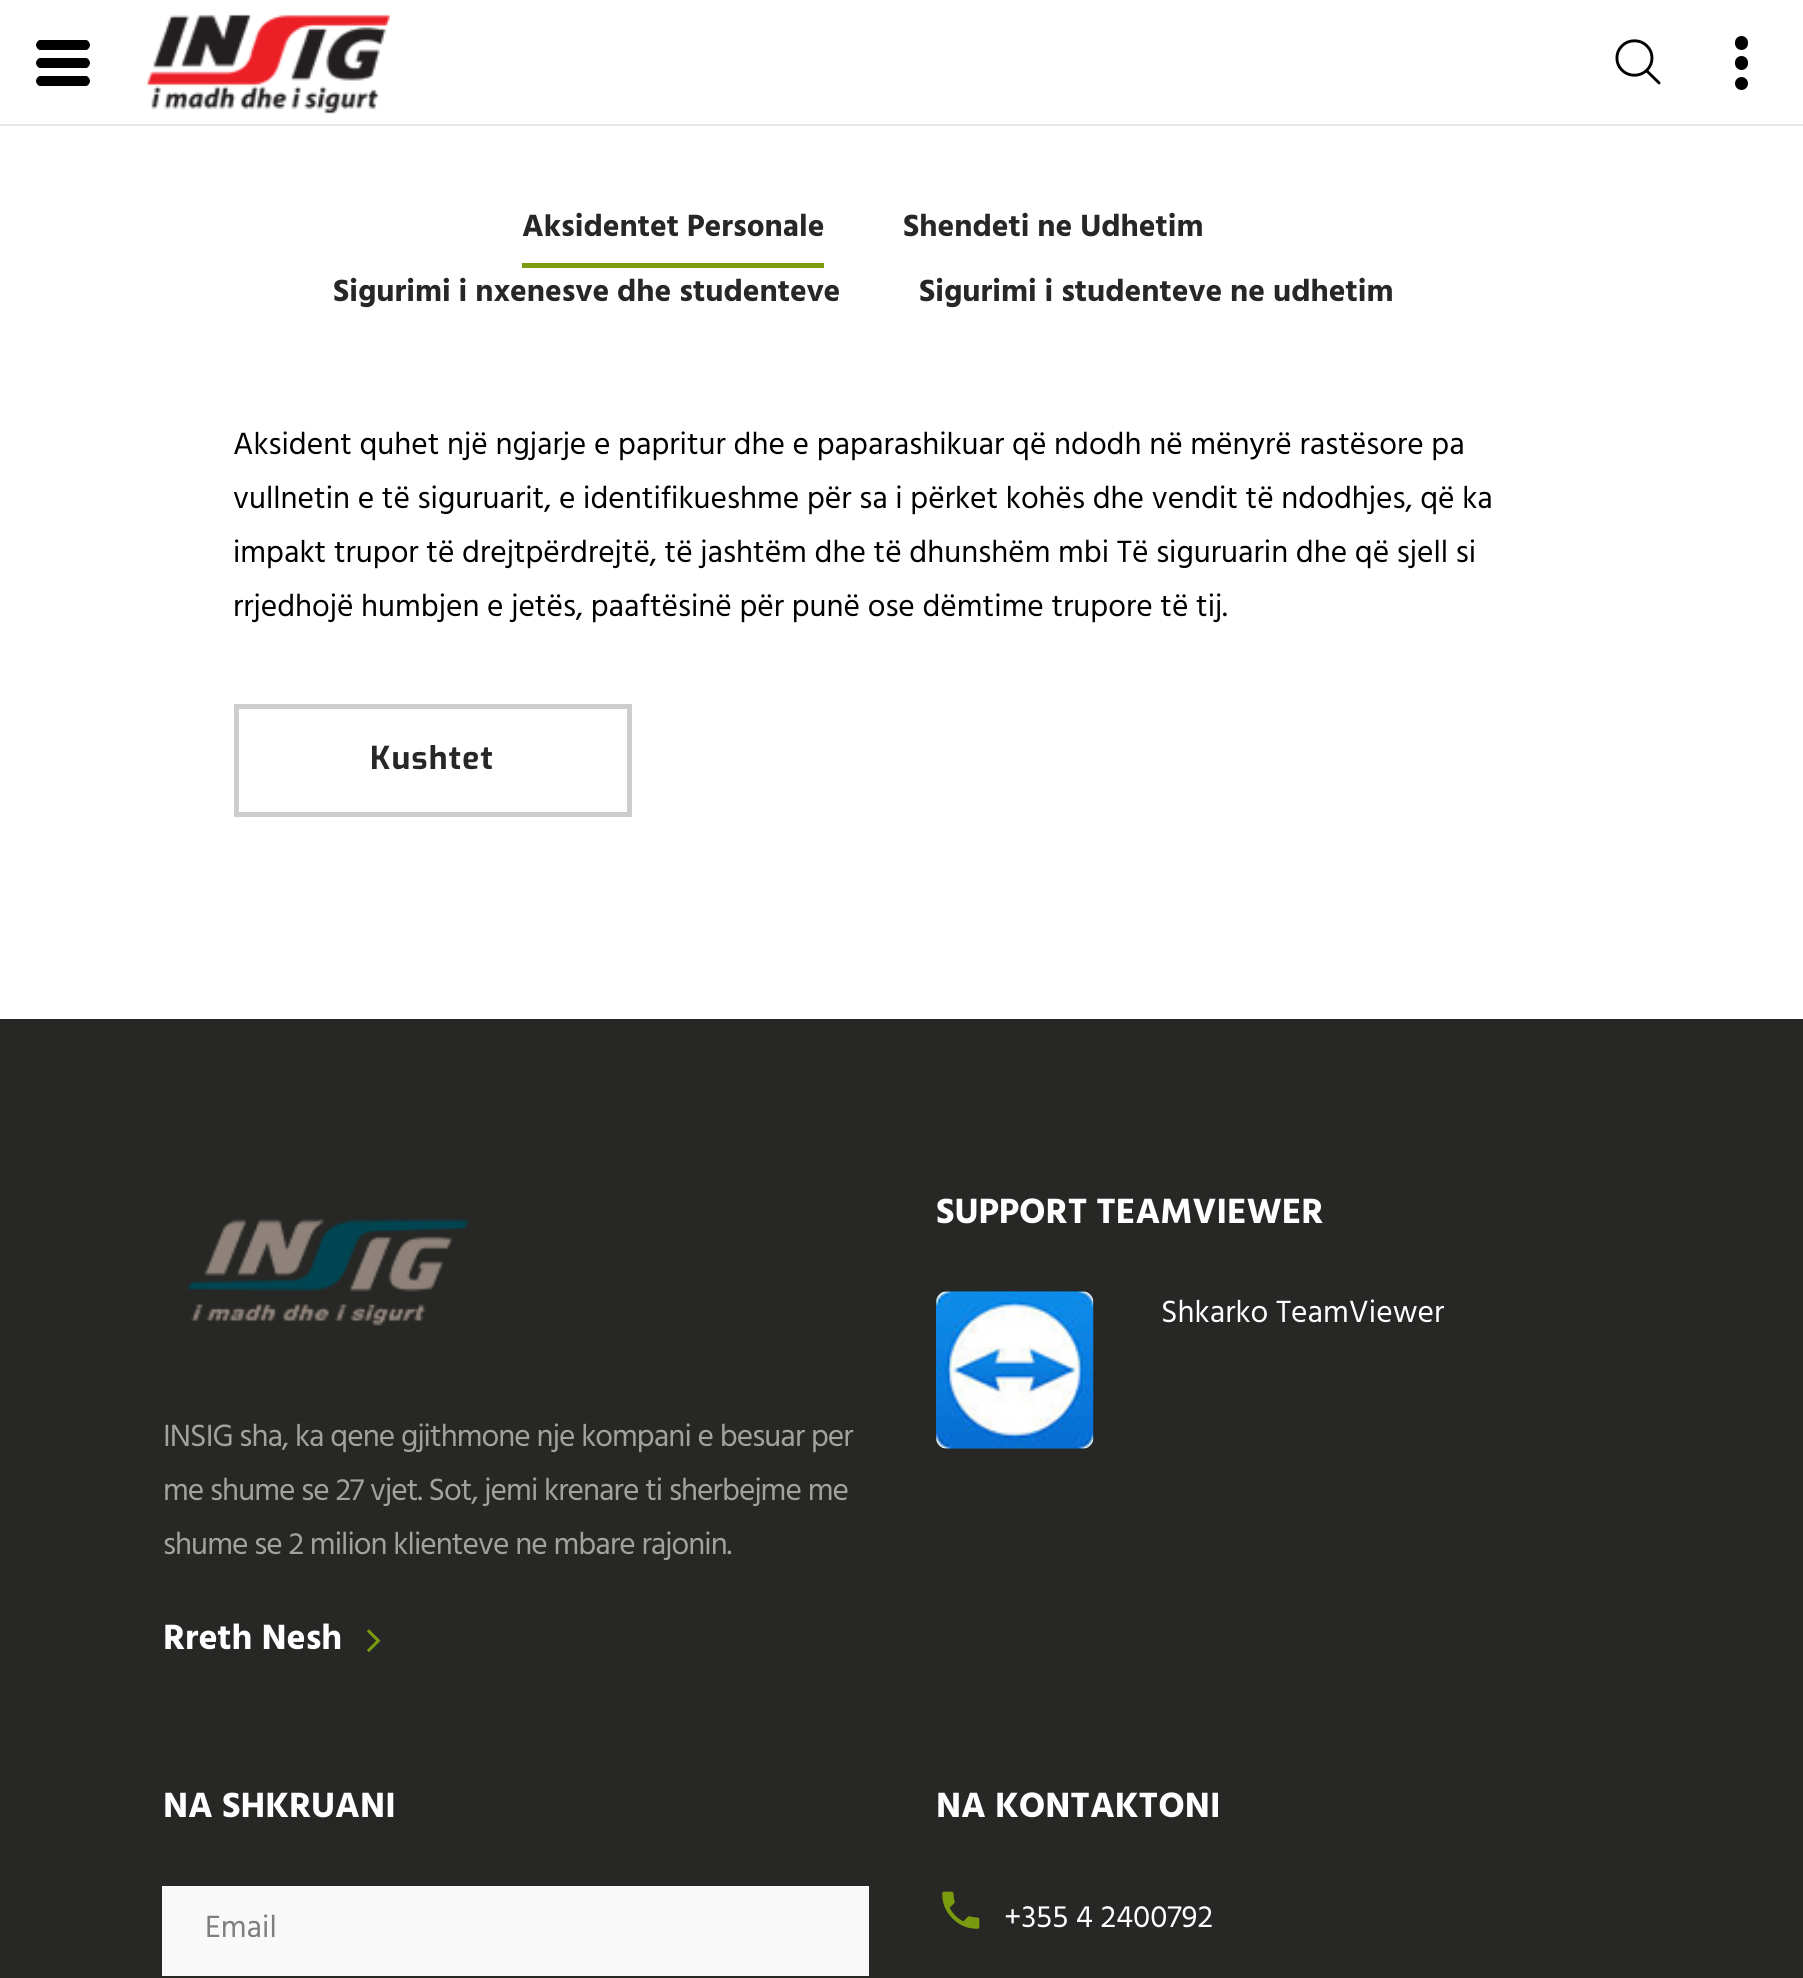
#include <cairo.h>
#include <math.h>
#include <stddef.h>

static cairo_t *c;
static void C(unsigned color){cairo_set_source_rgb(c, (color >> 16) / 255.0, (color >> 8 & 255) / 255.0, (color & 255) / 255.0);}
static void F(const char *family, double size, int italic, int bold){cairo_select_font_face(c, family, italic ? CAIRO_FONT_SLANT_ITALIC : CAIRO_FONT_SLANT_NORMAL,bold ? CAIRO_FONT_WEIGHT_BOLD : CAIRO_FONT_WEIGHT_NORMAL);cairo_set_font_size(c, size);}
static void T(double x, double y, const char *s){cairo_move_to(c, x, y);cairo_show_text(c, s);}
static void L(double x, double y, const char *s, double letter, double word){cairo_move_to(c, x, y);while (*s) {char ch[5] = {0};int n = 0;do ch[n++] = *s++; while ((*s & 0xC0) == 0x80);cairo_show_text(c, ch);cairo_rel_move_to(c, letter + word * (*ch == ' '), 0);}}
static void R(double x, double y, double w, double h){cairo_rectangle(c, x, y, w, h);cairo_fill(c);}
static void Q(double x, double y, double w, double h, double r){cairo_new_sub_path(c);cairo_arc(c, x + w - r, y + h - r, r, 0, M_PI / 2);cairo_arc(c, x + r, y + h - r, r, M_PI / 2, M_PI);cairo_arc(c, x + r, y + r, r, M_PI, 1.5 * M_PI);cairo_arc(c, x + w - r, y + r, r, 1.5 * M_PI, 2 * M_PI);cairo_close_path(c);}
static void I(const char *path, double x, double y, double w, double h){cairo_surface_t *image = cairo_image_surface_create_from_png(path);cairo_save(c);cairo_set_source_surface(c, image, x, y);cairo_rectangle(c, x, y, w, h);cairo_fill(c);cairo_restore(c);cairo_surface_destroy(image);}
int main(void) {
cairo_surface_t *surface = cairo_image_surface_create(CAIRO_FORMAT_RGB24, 1803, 1978);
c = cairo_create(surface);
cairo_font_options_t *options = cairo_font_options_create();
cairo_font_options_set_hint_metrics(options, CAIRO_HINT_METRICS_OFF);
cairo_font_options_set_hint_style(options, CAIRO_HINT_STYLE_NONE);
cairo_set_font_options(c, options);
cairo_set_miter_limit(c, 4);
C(0xffffff);
cairo_paint(c);
C(0x000000);
cairo_new_path(c);
cairo_move_to(c,86,68);
cairo_line_to(c,40,68);
cairo_curve_to(c,38,68,36,65,36,63);
cairo_curve_to(c,36,61,38,58,40,58);
cairo_line_to(c,86,58);
cairo_curve_to(c,88,58,90,61,90,63);
cairo_curve_to(c,90,65,88,68,86,68);
cairo_close_path(c);
cairo_move_to(c,86,86);
cairo_line_to(c,40,86);
cairo_curve_to(c,38,86,36,83,36,81);
cairo_curve_to(c,36,79,38,76,40,76);
cairo_line_to(c,86,76);
cairo_curve_to(c,88,76,90,79,90,81);
cairo_curve_to(c,90,83,88,86,86,86);
cairo_close_path(c);
cairo_move_to(c,86,50);
cairo_line_to(c,40,50);
cairo_curve_to(c,38,50,36,47,36,45);
cairo_curve_to(c,36,43,38,40,40,40);
cairo_line_to(c,86,40);
cairo_curve_to(c,88,40,90,43,90,45);
cairo_curve_to(c,90,47,88,50,86,50);
cairo_close_path(c);
cairo_fill(c);
I("1.png",146,14,244,100);
C(0xe5e7e9);
R(0,124,1803,2);
I("2.png",1615,39,46,46);
C(0x000000);
Q(1735,56,13,14,6.5);
cairo_fill(c);
Q(1735,36,13,14,6.5);
cairo_fill(c);
cairo_arc(c,1741.5,83.5,6.5,0,2 * M_PI);
cairo_fill(c);
F("Hind",31.5,0,1);
C(0x272725);
T(522,236,"Aksidentet Personale");
C(0x7a9b0e);
R(522,263,302,5);
C(0x272725);
T(903,236,"Shendeti ne Udhetim");
T(333,301,"Sigurimi i nxenesve dhe studenteve");
T(919,301,"Sigurimi i studenteve ne udhetim");
F("Hind",31.5,0,0);
C(0x000000);
T(233,454,"Aksident quhet një ngjarje e papritur dhe e paparashikuar që ndodh në mënyrë rastësore pa");
T(233,508,"vullnetin e të siguruarit, e identifikueshme për sa i përket kohës dhe vendit të ndodhjes, që ka");
T(233,562,"impakt trupor të drejtpërdrejtë, të jashtëm dhe të dhunshëm mbi Të siguruarin dhe që sjell si");
T(233,616,"rrjedhojë humbjen e jetës, paaftësinë për punë ose dëmtime trupore të tij.");
cairo_rectangle(c,236.5,706.5,393,108);
C(0xcdcdcd);
cairo_set_line_width(c,5);
cairo_stroke(c);
F("Exo",31.5,0,1);
C(0x272725);
L(370,769,"Kushtet",1.25,0);
R(0,1019,1803,959);
F("Hind",36,0,1);
C(0xffffff);
T(936,1223,"SUPPORT TEAMVIEWER");
I("3.png",936,1291,158,158);
F("Hind",31.5,0,0);
T(1161,1322,"Shkarko TeamViewer");
I("4.png",186,1218,283,108);
C(0xa1a19f);
L(163,1446,"INSIG sha, ka qene gjithmone nje kompani e besuar per",-.95,0);
L(163,1500,"me shume se 27 vjet. Sot, jemi krenare ti sherbejme me",-.95,0);
L(163,1554,"shume se 2 milion klienteve ne mbare rajonin.",-.95,0);
F("Hind",36,0,1);
C(0xffffff);
T(163,1649,"Rreth Nesh");
I("5.png",367,1629,14,23);
T(163,1817,"NA SHKRUANI");
C(0xf9f9f9);
R(162,1886,707,90);
F("Hind",31.5,0,0);
C(0x7f7f7f);
T(205,1937,"Email");
F("Hind",36,0,1);
C(0xffffff);
T(936,1817,"NA KONTAKTONI");
I("6.png",942,1891,38,38);
F("Hind",31.5,0,0);
T(1004,1927,"+355 4 2400792");
cairo_surface_write_to_png(surface, "o.png");
cairo_font_options_destroy(options);
cairo_destroy(c);
cairo_surface_destroy(surface);
return 0;
}
